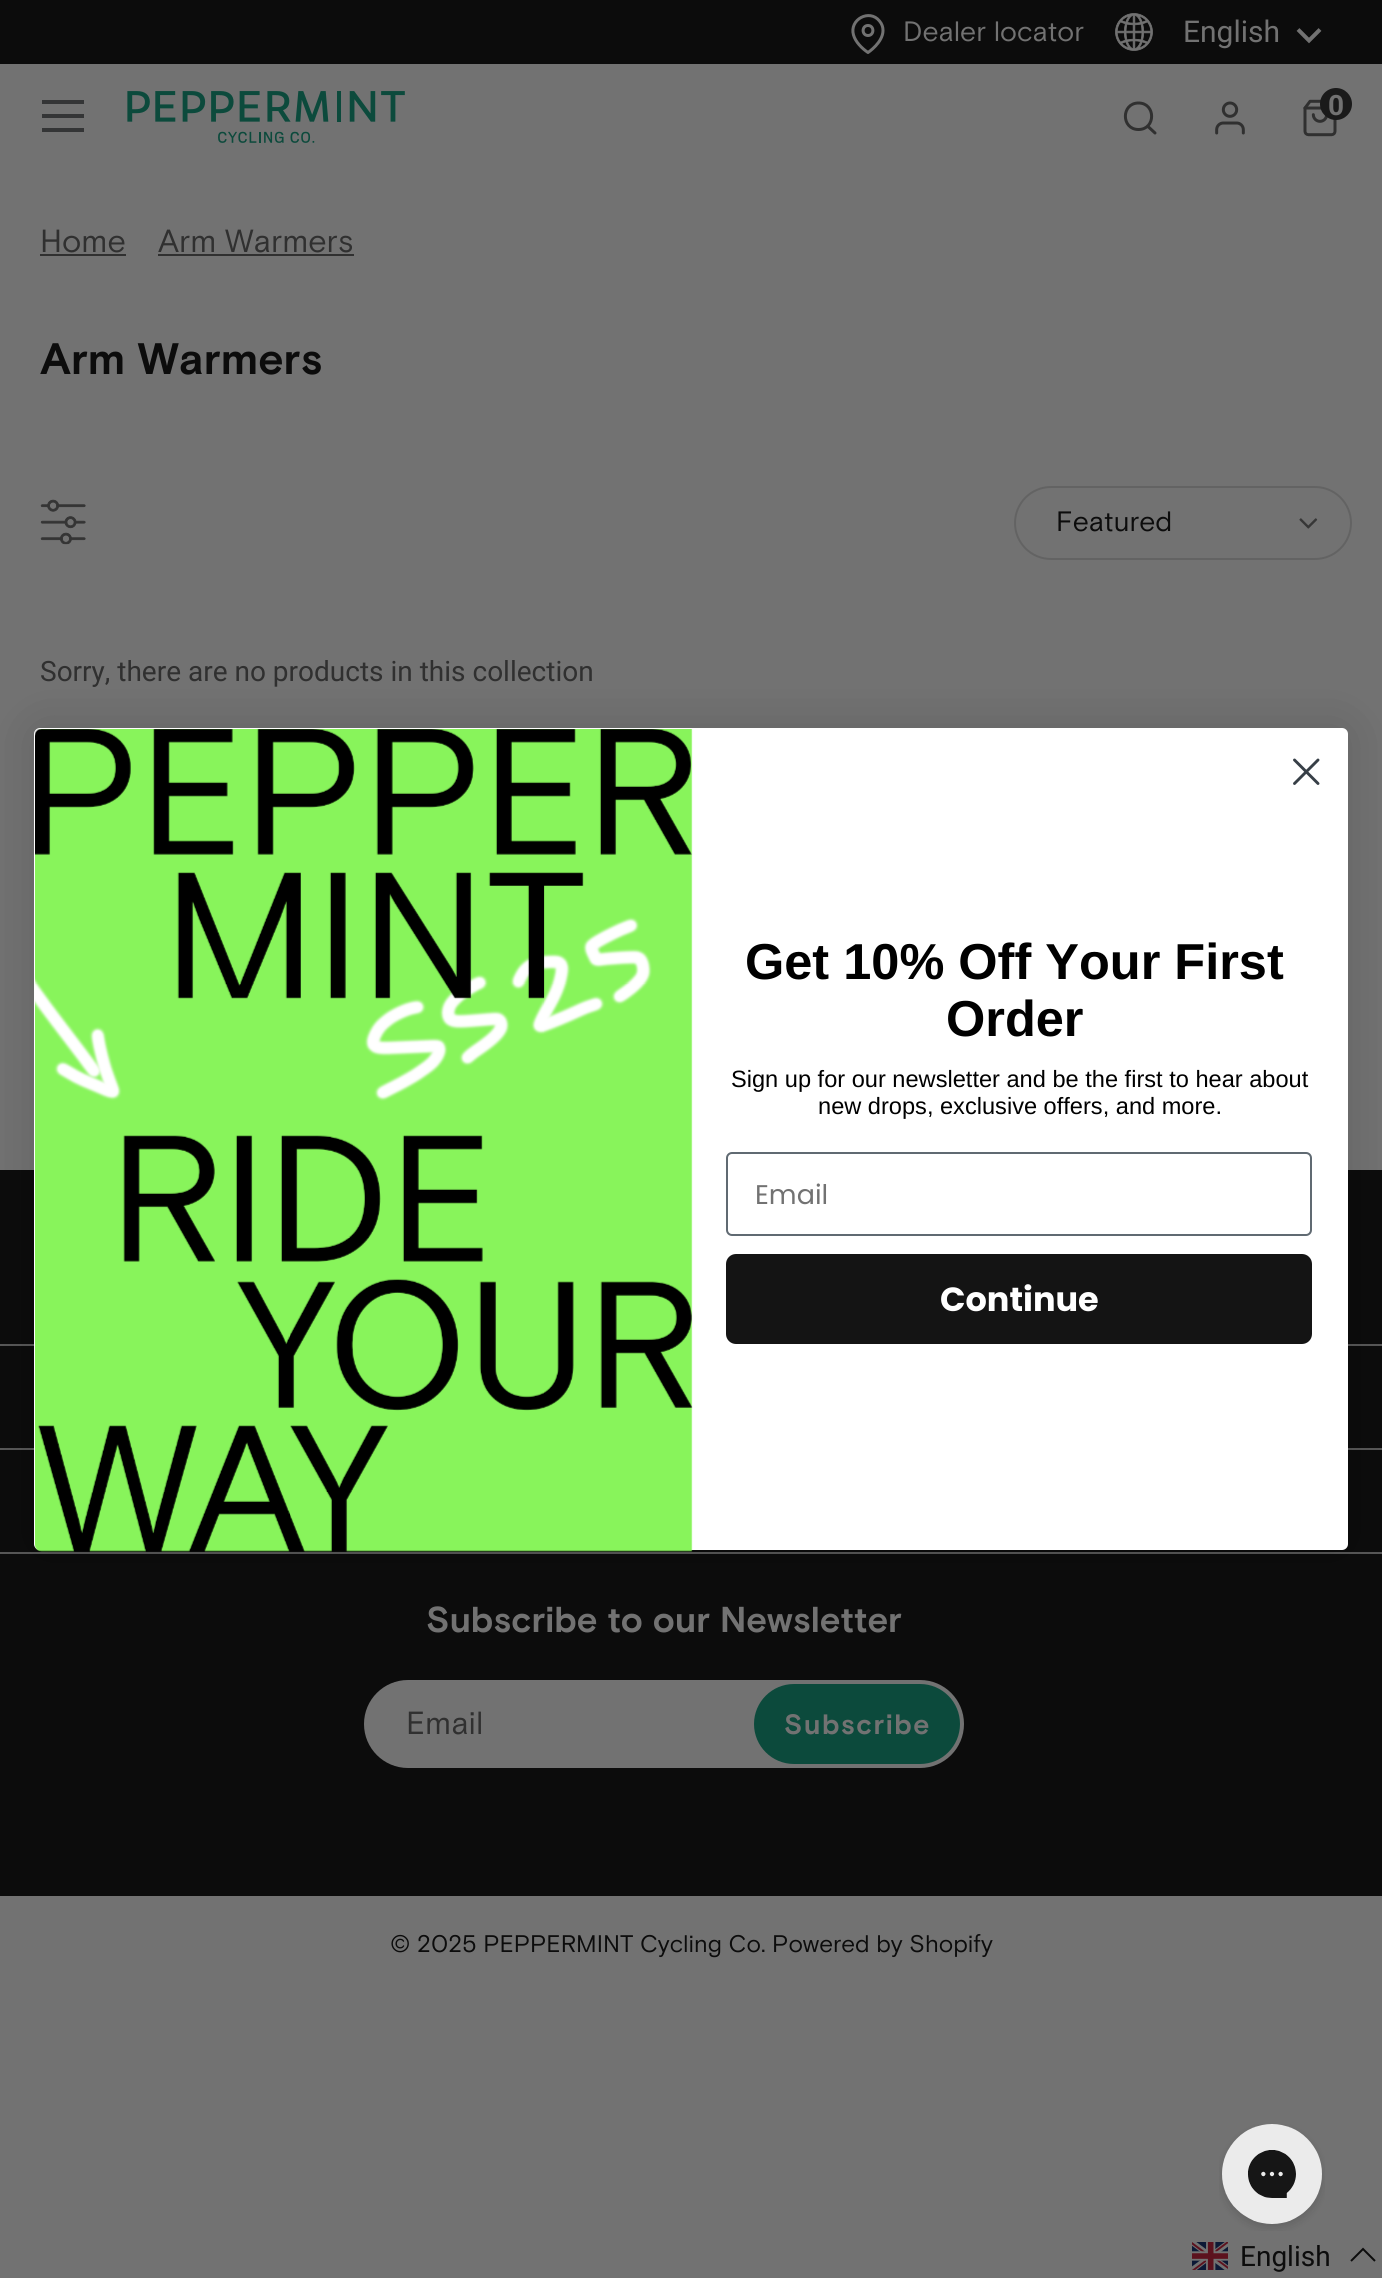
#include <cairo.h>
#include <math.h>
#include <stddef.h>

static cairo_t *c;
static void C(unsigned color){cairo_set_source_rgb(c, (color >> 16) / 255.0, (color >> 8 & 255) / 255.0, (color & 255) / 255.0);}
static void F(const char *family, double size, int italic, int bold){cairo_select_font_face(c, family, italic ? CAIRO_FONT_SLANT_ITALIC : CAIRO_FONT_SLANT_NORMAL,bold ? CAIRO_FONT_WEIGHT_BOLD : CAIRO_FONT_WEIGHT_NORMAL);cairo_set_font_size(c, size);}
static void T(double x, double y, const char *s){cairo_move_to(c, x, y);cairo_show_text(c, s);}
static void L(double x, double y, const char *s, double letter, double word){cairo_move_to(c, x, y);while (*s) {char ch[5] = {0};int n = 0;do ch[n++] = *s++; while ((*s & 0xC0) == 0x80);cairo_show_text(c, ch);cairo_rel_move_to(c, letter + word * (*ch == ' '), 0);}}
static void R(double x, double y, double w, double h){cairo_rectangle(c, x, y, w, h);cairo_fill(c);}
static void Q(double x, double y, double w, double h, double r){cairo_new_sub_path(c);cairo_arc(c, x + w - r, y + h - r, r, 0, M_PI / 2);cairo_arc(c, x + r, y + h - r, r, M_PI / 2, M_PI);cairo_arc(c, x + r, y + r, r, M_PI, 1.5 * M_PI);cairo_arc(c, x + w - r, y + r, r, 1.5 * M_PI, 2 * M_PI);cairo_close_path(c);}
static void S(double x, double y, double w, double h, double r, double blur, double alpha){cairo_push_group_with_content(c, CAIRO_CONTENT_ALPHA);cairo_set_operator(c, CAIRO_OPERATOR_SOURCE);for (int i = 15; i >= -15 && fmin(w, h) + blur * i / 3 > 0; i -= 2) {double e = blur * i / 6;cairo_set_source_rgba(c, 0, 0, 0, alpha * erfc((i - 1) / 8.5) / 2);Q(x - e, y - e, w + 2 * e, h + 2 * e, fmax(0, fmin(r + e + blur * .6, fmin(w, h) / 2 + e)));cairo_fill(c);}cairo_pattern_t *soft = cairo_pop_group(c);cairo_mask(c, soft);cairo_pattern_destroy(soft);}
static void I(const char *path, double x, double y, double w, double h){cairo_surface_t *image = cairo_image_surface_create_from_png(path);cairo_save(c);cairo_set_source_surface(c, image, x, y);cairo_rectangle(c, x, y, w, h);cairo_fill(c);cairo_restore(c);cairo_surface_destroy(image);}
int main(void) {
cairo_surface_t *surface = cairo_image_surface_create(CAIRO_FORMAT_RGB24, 1382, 2278);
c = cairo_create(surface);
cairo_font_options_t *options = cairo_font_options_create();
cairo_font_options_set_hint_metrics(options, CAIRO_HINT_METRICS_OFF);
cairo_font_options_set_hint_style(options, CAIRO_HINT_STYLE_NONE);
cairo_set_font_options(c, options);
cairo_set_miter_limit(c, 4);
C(0x727272);
cairo_paint(c);
C(0x0c0c0c);
R(0,0,1382,64);
cairo_new_path(c);
cairo_move_to(c,883,30.5);
cairo_curve_to(c,883,42.5,868,52.5,868,52.5);
cairo_curve_to(c,862,48.5,855.5,42,853.5,35);
cairo_curve_to(c,849,19.5,869.5,8.5,879.5,21);
cairo_curve_to(c,882,24,883,27,883,30.5);
cairo_close_path(c);
cairo_move_to(c,868,35.5);
cairo_curve_to(c,874.5,35.5,874.5,25.5,868,25.5);
cairo_curve_to(c,861.5,25.5,861.5,35.5,868,35.5);
cairo_close_path(c);
C(0x727272);
cairo_set_line_width(c,3);
cairo_set_line_cap(c,CAIRO_LINE_CAP_ROUND);
cairo_set_line_join(c,CAIRO_LINE_JOIN_ROUND);
cairo_stroke(c);
F("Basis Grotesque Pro",28,0,0);
T(903,41,"Dealer locator");
I("1.png",1115,13,38,38);
F("Roboto",30,0,0);
T(1183,42,"English");
cairo_new_path(c);
cairo_move_to(c,1298,29.5);
cairo_line_to(c,1309,40.5);
cairo_line_to(c,1320,29.5);
cairo_set_line_width(c,4);
cairo_set_line_cap(c,CAIRO_LINE_CAP_BUTT);
cairo_set_line_join(c,CAIRO_LINE_JOIN_MITER);
cairo_stroke(c);
C(0x343536);
R(42,100,42,4);
R(42,114,42,4);
R(42,128,42,4);
I("2.png",127,91,278,52);
cairo_new_path(c);
cairo_move_to(c,1138.5,129.5);
cairo_curve_to(c,1156,129.5,1156,103,1138.5,103);
cairo_curve_to(c,1121,103,1121,129.5,1138.5,129.5);
cairo_close_path(c);
cairo_move_to(c,1155,133);
cairo_line_to(c,1147.5,126);
C(0x303030);
cairo_set_line_width(c,3);
cairo_set_line_cap(c,CAIRO_LINE_CAP_ROUND);
cairo_set_line_join(c,CAIRO_LINE_JOIN_ROUND);
cairo_stroke(c);
I("3.png",1215,101,30,34);
I("4.png",1303,99,34,38);
C(0x1a1a1a);
cairo_arc(c,1336,104,16,0,2 * M_PI);
cairo_fill(c);
F("Roboto",28,0,1);
C(0x727272);
T(1328,115,"0");
F("Basis Grotesque Pro",32,0,0);
C(0x303030);
T(40,252,"Home");
R(40,254,86,2);
T(158,252,"Arm Warmers");
R(158,254,196,2);
F("Basis Grotesque Pro",44,0,1);
C(0x0c0c0c);
T(40,374,"Arm Warmers");
I("5.png",40,499,46,46);
Q(1015,487,336,72,36);
C(0x636363);
cairo_set_line_width(c,2);
cairo_set_line_cap(c,CAIRO_LINE_CAP_BUTT);
cairo_set_line_join(c,CAIRO_LINE_JOIN_MITER);
cairo_stroke(c);
F("Basis Grotesque Pro",28,0,0);
C(0x0c0c0c);
T(1056,531,"Featured");
I("6.png",1299,518,19,11);
F("Roboto",28,0,0);
C(0x303030);
T(40,681,"Sorry, there are no products in this collection");
C(0x0c0c0c);
R(0,1170,1382,726);
C(0x585858);
R(0,1344,1382,2);
R(0,1448,1382,2);
R(0,1552,1382,2);
F("Basis Grotesque Pro",36,0,1);
C(0x727272);
T(426,1632,"Subscribe to our Newsletter");
Q(364,1680,600,88,44);
cairo_fill(c);
F("Basis Grotesque Pro",32,0,0);
C(0x303030);
T(406,1734,"Email");
C(0x0c4a3c);
Q(754,1684,206,80,40);
cairo_fill(c);
F("Basis Grotesque Pro",28,0,1);
C(0x727272);
L(784,1734,"Subscribe",1.5,0);
F("Basis Grotesque Pro",24,0,0);
C(0x0c0c0c);
T(390,1952,"© 2025 PEPPERMINT Cycling Co. Powered by Shopify");
C(0x000000);
S(34,728,1314,822,6,25.5,.15);
C(0xffffff);
Q(34,728,1314,822,6);
cairo_fill(c);
cairo_new_path(c);
cairo_move_to(c,1294.5,760);
cairo_line_to(c,1318,783.5);
cairo_move_to(c,1294.5,783.5);
cairo_line_to(c,1318,760);
cairo_close_path(c);
C(0x373f47);
cairo_set_line_width(c,2.9);
cairo_set_line_cap(c,CAIRO_LINE_CAP_ROUND);
cairo_set_line_join(c,CAIRO_LINE_JOIN_ROUND);
cairo_stroke(c);
I("7.png",35,729,658,823);
F("Liberation Sans",50.5,0,1);
C(0x000000);
T(745,979,"Get 10% Off Your First");
T(946,1036,"Order");
F("Liberation Sans",23.6,0,0);
T(731,1087,"Sign up for our newsletter and be the first to hear about");
T(818,1114,"new drops, exclusive offers, and more.");
Q(727,1153,584,82,5);
C(0x606a72);
cairo_set_line_width(c,2);
cairo_set_line_cap(c,CAIRO_LINE_CAP_BUTT);
cairo_set_line_join(c,CAIRO_LINE_JOIN_MITER);
cairo_stroke(c);
F("Poppins",27,0,0);
C(0x727272);
T(755,1204,"Email");
C(0x141414);
Q(726,1254,586,90,10);
cairo_fill(c);
F("Poppins",33.5,0,1);
C(0xffffff);
T(940,1311,"Continue");
I("8.png",1219,2124,106,107);
I("9.png",1192,2242,36,28);
F("Roboto",28,0,0);
C(0x0c0c0c);
T(1240,2266,"English");
cairo_new_path(c);
cairo_move_to(c,1375,2261);
cairo_line_to(c,1363,2249);
cairo_line_to(c,1351,2261);
cairo_stroke(c);
cairo_surface_write_to_png(surface, "o.png");
cairo_font_options_destroy(options);
cairo_destroy(c);
cairo_surface_destroy(surface);
return 0;
}
